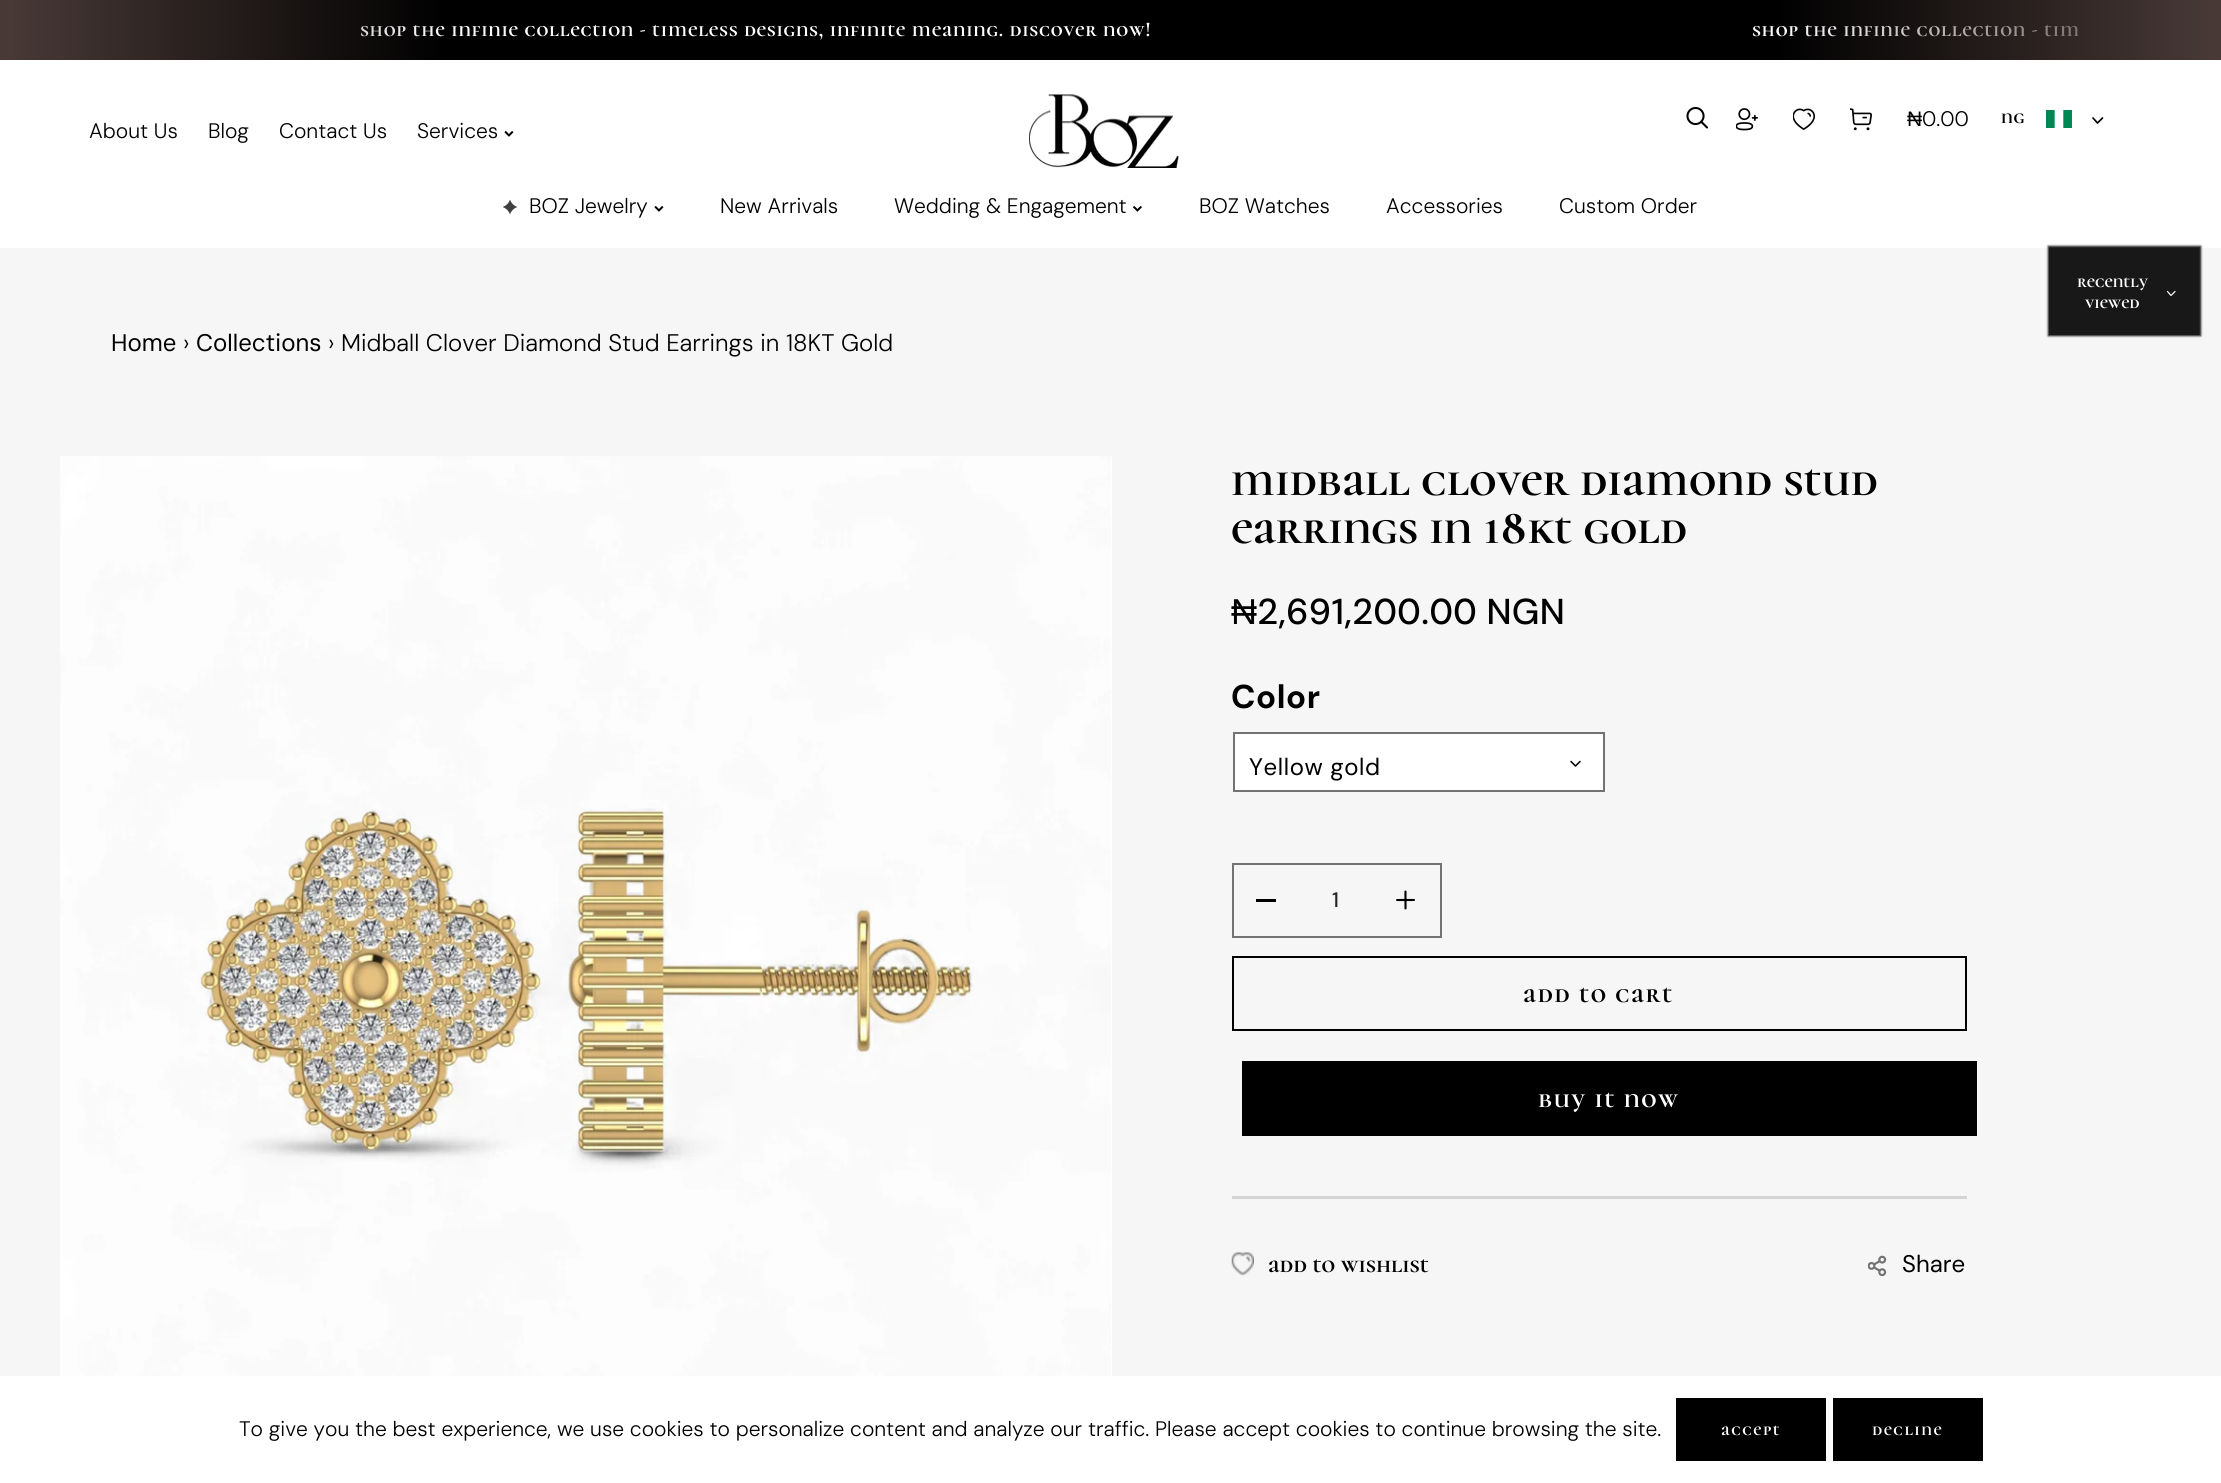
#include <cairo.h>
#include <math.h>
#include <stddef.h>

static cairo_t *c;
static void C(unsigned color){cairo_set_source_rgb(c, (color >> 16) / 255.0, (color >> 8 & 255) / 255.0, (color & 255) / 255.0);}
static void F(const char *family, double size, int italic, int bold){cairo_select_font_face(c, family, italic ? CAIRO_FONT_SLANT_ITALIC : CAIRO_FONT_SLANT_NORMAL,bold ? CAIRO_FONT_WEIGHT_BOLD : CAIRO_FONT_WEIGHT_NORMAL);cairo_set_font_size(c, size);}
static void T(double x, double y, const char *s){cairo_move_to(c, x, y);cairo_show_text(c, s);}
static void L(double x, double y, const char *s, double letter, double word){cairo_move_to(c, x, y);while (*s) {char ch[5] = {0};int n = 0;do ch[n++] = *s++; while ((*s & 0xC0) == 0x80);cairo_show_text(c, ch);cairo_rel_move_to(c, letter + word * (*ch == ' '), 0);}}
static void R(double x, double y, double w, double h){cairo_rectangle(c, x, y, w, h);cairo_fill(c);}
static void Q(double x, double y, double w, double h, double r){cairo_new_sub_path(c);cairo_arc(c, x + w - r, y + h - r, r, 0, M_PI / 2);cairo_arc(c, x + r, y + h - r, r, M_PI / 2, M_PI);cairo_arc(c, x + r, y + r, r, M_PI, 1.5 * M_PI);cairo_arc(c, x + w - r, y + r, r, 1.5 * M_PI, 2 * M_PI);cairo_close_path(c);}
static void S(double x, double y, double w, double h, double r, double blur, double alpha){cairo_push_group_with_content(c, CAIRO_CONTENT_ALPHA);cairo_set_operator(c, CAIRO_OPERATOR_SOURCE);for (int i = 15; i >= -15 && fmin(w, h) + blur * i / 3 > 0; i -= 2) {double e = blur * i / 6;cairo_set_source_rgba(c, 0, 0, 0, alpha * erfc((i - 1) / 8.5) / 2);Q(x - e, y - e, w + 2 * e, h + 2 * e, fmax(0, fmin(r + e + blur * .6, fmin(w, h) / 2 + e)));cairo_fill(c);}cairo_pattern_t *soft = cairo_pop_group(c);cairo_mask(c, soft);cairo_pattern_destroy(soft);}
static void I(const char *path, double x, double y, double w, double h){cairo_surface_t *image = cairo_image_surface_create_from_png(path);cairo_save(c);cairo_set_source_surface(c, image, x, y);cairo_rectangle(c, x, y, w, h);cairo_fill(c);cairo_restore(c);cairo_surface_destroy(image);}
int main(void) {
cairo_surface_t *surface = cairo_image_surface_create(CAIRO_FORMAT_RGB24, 2221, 1483);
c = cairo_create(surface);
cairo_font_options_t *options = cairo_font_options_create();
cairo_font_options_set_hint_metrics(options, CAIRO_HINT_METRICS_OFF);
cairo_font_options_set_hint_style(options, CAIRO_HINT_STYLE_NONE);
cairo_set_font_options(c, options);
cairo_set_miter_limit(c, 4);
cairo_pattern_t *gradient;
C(0xffffff);
cairo_paint(c);
C(0x000000);
R(12,0,2198,60);
F("Cormorant Unicase",21,0,1);
C(0xffffff);
L(360,36,"shop the infinie collection - timeless designs, infinite meaning. discover now!",.75,0);
gradient = cairo_pattern_create_linear(0,30,450,30);
cairo_pattern_add_color_stop_rgba(gradient,.02,0.282,0.224,0.212,1);
cairo_pattern_add_color_stop_rgba(gradient,1,0.282,0.224,0.212,0);
cairo_set_source(c,gradient);
cairo_pattern_destroy(gradient);
R(0,0,440,60);
C(0xffffff);
L(1752,36,"shop the infinie collection - tim",.75,0);
gradient = cairo_pattern_create_linear(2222,30,1772,30);
cairo_pattern_add_color_stop_rgba(gradient,.02,0.282,0.224,0.212,1);
cairo_pattern_add_color_stop_rgba(gradient,1,0.282,0.224,0.212,0);
cairo_set_source(c,gradient);
cairo_pattern_destroy(gradient);
R(1782,0,439,60);
I("1.png",1686,107,22,22);
I("2.png",1736,108,22,23);
I("3.png",1793,108,22,22);
I("4.png",1850,108,22,23);
F("Liberation Sans",21,0,0);
C(0x000000);
T(1907,126,"₦");
F("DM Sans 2 Light",21,0,0);
T(1922,126,"0.00");
F("Cormorant Unicase",20,0,1);
L(2001,123,"ng",.6,0);
I("5.png",2046,110,26,18);
cairo_new_path(c);
cairo_move_to(c,2093,118);
cairo_line_to(c,2097.5,123);
cairo_line_to(c,2102.5,118);
cairo_set_line_width(c,1.7);
cairo_set_line_cap(c,CAIRO_LINE_CAP_ROUND);
cairo_set_line_join(c,CAIRO_LINE_JOIN_ROUND);
cairo_stroke(c);
F("DM Sans 2 Light",21,0,0);
T(89,138,"About Us");
T(208,138,"Blog");
T(279,138,"Contact Us");
T(417,138,"Services");
I("6.png",504,131,10,6);
I("7.png",1029,94,150,74);
I("8.png",503,200,15,15);
T(529,213,"BOZ Jewelry");
I("6.png",654,206,10,6);
T(720,213,"New Arrivals");
T(894,213,"Wedding & Engagement");
I("9.png",1133,206,9,6);
T(1199,213,"BOZ Watches");
T(1386,213,"Accessories");
T(1559,213,"Custom Order");
C(0xf6f6f6);
R(0,248,2221,1128);
C(0x181818);
S(2048,246,153,90,0,1,1);
C(0x181818);
R(2049,248,150,87);
F("Cormorant Unicase",18,0,1);
C(0xffffff);
T(2077,287,"recently");
cairo_new_path(c);
cairo_move_to(c,2167.5,291.5);
cairo_line_to(c,2171,295.5);
cairo_line_to(c,2175,291.5);
cairo_set_line_width(c,1.2);
cairo_stroke(c);
T(2085,308,"viewed");
F("DM Sans",24,0,0);
C(0x000000);
T(111,351,"Home");
F("DM Sans Light",24,0,0);
T(183,351,"›");
F("DM Sans",24,0,0);
T(196,351,"Collections");
F("DM Sans Light",24,0,0);
T(328,351,"› Midball Clover Diamond Stud Earrings in 18KT Gold");
C(0xffffff);
R(1111,456,1,920);
I("10.png",60,456,1051,920);
F("Cormorant Unicase",48,0,1);
C(0x000000);
T(1231,495,"midball clover diamond stud");
T(1231,543,"earrings in 18kt gold");
F("Liberation Sans",36,0,0);
T(1231,624,"₦");
F("DM Sans Medium",36,0,0);
T(1257,624,"2,691,200.00 NGN");
F("DM Sans",33,0,1);
L(1231,708,"Color",.6,0);
C(0xffffff);
cairo_rectangle(c,1234,733,370,58);
cairo_fill_preserve(c);
C(0x757272);
cairo_set_line_width(c,2);
cairo_set_line_cap(c,CAIRO_LINE_CAP_BUTT);
cairo_set_line_join(c,CAIRO_LINE_JOIN_MITER);
cairo_stroke(c);
F("DM Sans 2",24,0,0);
C(0x000000);
L(1249,775,"Yellow gold",.6,0);
cairo_new_path(c);
cairo_move_to(c,1571,761.5);
cairo_line_to(c,1575.5,766);
cairo_line_to(c,1580,761.5);
cairo_set_line_width(c,1.5);
cairo_set_line_cap(c,CAIRO_LINE_CAP_ROUND);
cairo_set_line_join(c,CAIRO_LINE_JOIN_ROUND);
cairo_stroke(c);
C(0xd4d4d4);
R(1232,1196,735,3);
C(0x000000);
R(1256,899,20,3);
I("11.png",1396,890,19,20);
cairo_rectangle(c,1233,864,208,73);
C(0x757272);
cairo_set_line_width(c,2);
cairo_set_line_cap(c,CAIRO_LINE_CAP_BUTT);
cairo_set_line_join(c,CAIRO_LINE_JOIN_MITER);
cairo_stroke(c);
F("DM Sans 2 Medium",21,0,0);
C(0x252525);
T(1332,907,"1");
cairo_rectangle(c,1233,957,733,73);
C(0x000000);
cairo_stroke(c);
F("Cormorant Unicase",27,0,1);
L(1523,1002,"add to cart",1.5,0);
R(1242,1061,735,75);
C(0xffffff);
L(1538,1107,"buy it now",1.5,0);
I("12.png",1231,1252,23,24);
F("Cormorant Unicase",24,0,1);
C(0x000000);
T(1268,1272,"add to wishlist");
I("13.png",1868,1255,19,22);
F("DM Sans 2",24,0,0);
T(1902,1272,"Share");
F("DM Sans 2 Light",21,0,0);
T(239,1436,"To give you the best experience, we use cookies to personalize content and analyze our traffic. Please accept cookies to continue browsing the site.");
R(1676,1398,150,63);
F("Cormorant Unicase",18,0,1);
C(0xffffff);
L(1721,1435,"accept",1.5,0);
C(0x000000);
R(1833,1398,150,63);
C(0xffffff);
L(1872,1435,"decline",1.5,0);
cairo_surface_write_to_png(surface, "o.png");
cairo_font_options_destroy(options);
cairo_destroy(c);
cairo_surface_destroy(surface);
return 0;
}
